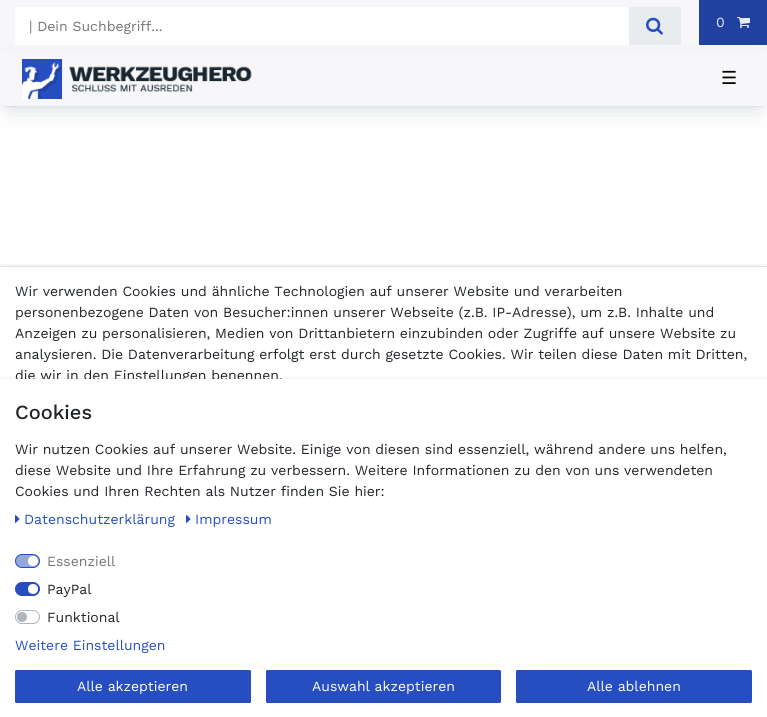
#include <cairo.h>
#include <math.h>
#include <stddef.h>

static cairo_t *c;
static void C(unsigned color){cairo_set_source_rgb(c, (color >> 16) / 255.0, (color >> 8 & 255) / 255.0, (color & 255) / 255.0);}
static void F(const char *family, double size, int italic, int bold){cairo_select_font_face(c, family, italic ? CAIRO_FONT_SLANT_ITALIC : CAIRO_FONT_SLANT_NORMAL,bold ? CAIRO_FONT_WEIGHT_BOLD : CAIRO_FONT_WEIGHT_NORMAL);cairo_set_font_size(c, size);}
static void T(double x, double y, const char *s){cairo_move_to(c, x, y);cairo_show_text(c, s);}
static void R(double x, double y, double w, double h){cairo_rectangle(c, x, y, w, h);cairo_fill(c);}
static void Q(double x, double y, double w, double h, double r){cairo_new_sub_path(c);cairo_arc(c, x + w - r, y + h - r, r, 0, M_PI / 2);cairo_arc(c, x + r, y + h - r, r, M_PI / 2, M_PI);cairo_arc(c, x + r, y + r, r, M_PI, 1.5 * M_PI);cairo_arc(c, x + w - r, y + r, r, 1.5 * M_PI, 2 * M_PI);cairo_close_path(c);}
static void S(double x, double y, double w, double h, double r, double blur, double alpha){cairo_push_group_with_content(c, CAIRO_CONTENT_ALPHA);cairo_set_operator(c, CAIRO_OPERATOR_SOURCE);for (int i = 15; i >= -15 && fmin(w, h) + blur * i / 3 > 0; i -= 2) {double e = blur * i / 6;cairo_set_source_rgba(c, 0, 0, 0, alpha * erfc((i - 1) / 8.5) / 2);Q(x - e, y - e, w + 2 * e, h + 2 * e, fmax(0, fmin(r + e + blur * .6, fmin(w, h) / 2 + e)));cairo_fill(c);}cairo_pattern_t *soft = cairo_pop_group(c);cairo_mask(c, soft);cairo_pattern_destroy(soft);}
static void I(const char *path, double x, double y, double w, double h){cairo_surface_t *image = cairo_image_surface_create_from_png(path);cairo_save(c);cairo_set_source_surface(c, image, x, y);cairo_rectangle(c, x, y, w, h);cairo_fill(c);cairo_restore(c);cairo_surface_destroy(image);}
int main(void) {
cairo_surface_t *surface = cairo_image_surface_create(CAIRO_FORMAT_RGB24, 767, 717);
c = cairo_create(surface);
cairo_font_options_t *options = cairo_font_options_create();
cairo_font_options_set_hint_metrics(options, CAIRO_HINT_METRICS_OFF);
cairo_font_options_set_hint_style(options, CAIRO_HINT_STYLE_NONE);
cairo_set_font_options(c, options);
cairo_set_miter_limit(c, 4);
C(0xffffff);
cairo_paint(c);
C(0xf7f7f9);
R(0,0,767,52);
C(0xffffff);
R(15,7,614,38);
F("Work Sans",14,0,0);
C(0x757575);
T(29,31,"| Dein Suchbegriff...");
C(0xe9ecef);
R(629,7,52,38);
I("1.png",646,17,17,18);
C(0x2041a0);
R(699,0,68,45);
C(0xe9ecef);
T(716,27,"0");
I("2.png",737,17,13,11);
C(0x535a68);
S(8,68,751,39,0,12,.25);
C(0xf7f7f9);
cairo_new_path(c);
cairo_move_to(c,0,52);
cairo_line_to(c,767,52);
cairo_line_to(c,767,99);
cairo_curve_to(c,767,103.5,763.5,107,759,107);
cairo_line_to(c,8,107);
cairo_curve_to(c,3.5,107,0,103.5,0,99);
cairo_close_path(c);
cairo_fill(c);
C(0xdee2e6);
R(4,106,759,1);
I("3.png",22,59,230,40);
F("DejaVu Sans",18,0,0);
C(0x000000);
T(721,84,"☰");
C(0x000000);
S(0,267,767,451,0,2.5,.15);
C(0xffffff);
R(0,267,767,112);
C(0xdee2e6);
R(0,266,767,1);
F("Work Sans",14,0,0);
C(0x212529);
T(15,296,"Wir verwenden Cookies und ähnliche Technologien auf unserer Website und verarbeiten");
T(15,317,"personenbezogene Daten von Besucher:innen unserer Webseite (z.B. IP-Adresse), um z.B. Inhalte und");
T(15,338,"Anzeigen zu personalisieren, Medien von Drittanbietern einzubinden oder Zugriffe auf unsere Website zu");
T(15,359,"analysieren. Die Datenverarbeitung erfolgt erst durch gesetzte Cookies. Wir teilen diese Daten mit Dritten,");
T(15,380,"die wir in den Einstellungen benennen.");
C(0x000000);
S(0,380,767,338,0,2.5,.15);
C(0xffffff);
R(0,379,767,338);
F("Work Sans Medium",20,0,0);
C(0x212529);
T(15,419,"Cookies");
F("Work Sans",14,0,0);
T(15,454,"Wir nutzen Cookies auf unserer Website. Einige von diesen sind essenziell, während andere uns helfen,");
T(15,475,"diese Website und Ihre Erfahrung zu verbessern. Weitere Informationen zu den von uns verwendeten");
T(15,496,"Cookies und Ihren Rechten als Nutzer finden Sie hier:");
I("4.png",15,515,5,8);
C(0x274ec1);
T(24,524,"Datenschutzerklärung");
I("4.png",186,515,5,8);
T(195,524,"Impressum");
C(0x93a7e0);
Q(15.5,554.5,24,13,6.5);
cairo_fill_preserve(c);
C(0x274ec1);
cairo_set_line_width(c,1);
cairo_stroke(c);
C(0x757575);
T(47,566,"Essenziell");
C(0xffffff);
cairo_new_path(c);
cairo_arc(c,33,561,5,0,2 * M_PI);
cairo_fill(c);
C(0x274ec1);
Q(15.5,582.5,24,13,6.5);
cairo_fill_preserve(c);
cairo_stroke(c);
C(0x212529);
T(47,594,"PayPal");
C(0xffffff);
cairo_new_path(c);
cairo_arc(c,33,589,5,0,2 * M_PI);
cairo_fill(c);
Q(15.5,610.5,24,13,6.5);
C(0xadb5bd);
cairo_stroke(c);
C(0x212529);
T(47,622,"Funktional");
C(0xadb5bd);
cairo_new_path(c);
cairo_arc(c,22,617,5,0,2 * M_PI);
cairo_fill(c);
C(0x274ec1);
T(15,650,"Weitere Einstellungen");
Q(15.5,670.5,235,32,1);
cairo_fill_preserve(c);
cairo_stroke(c);
C(0xffffff);
T(77,691,"Alle akzeptieren");
C(0x274ec1);
Q(266.5,670.5,234,32,1);
cairo_fill_preserve(c);
cairo_stroke(c);
C(0xffffff);
T(312,691,"Auswahl akzeptieren");
C(0x274ec1);
Q(516.5,670.5,235,32,1);
cairo_fill_preserve(c);
cairo_stroke(c);
C(0xffffff);
T(587,691,"Alle ablehnen");
cairo_surface_write_to_png(surface, "o.png");
cairo_font_options_destroy(options);
cairo_destroy(c);
cairo_surface_destroy(surface);
return 0;
}
